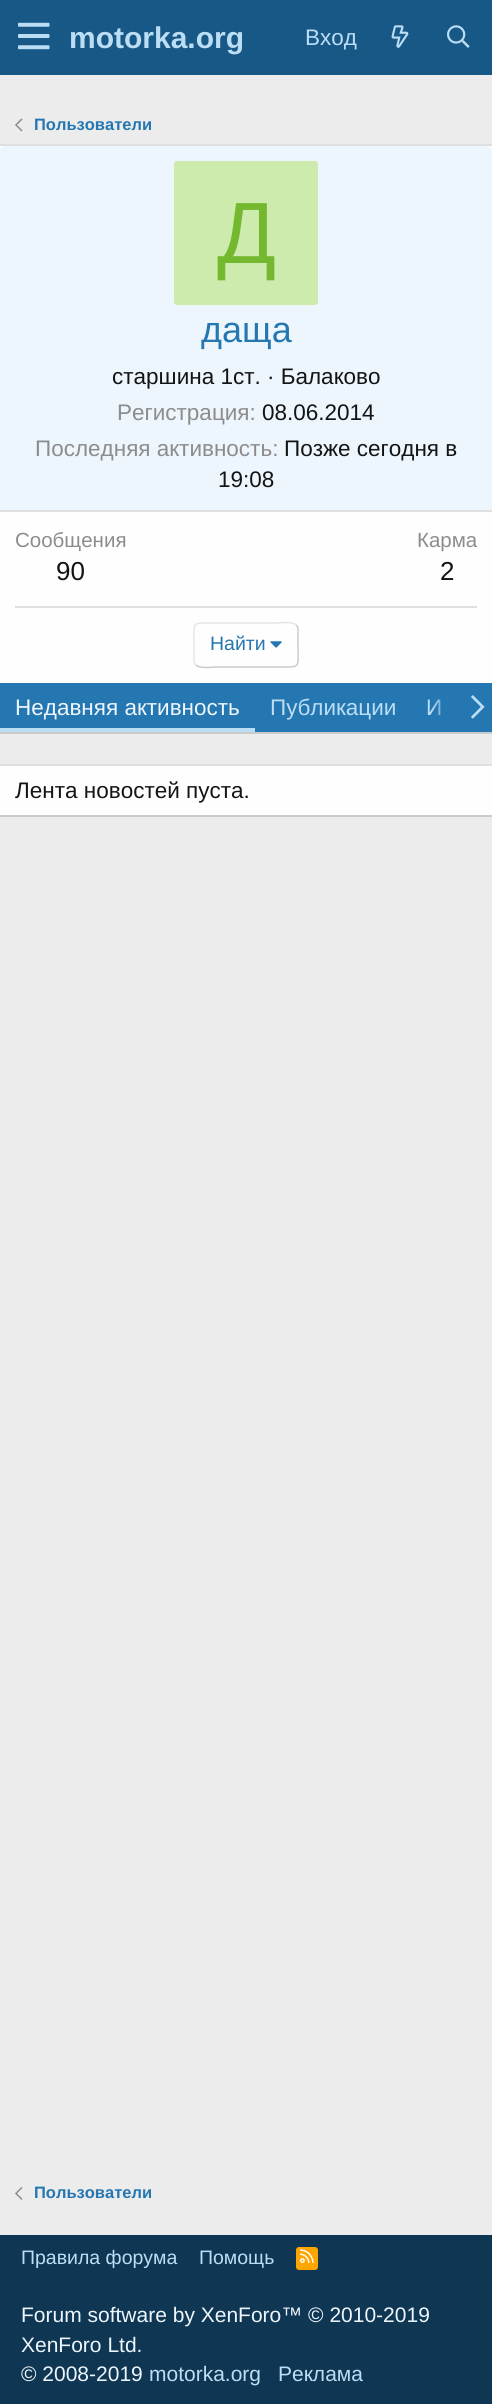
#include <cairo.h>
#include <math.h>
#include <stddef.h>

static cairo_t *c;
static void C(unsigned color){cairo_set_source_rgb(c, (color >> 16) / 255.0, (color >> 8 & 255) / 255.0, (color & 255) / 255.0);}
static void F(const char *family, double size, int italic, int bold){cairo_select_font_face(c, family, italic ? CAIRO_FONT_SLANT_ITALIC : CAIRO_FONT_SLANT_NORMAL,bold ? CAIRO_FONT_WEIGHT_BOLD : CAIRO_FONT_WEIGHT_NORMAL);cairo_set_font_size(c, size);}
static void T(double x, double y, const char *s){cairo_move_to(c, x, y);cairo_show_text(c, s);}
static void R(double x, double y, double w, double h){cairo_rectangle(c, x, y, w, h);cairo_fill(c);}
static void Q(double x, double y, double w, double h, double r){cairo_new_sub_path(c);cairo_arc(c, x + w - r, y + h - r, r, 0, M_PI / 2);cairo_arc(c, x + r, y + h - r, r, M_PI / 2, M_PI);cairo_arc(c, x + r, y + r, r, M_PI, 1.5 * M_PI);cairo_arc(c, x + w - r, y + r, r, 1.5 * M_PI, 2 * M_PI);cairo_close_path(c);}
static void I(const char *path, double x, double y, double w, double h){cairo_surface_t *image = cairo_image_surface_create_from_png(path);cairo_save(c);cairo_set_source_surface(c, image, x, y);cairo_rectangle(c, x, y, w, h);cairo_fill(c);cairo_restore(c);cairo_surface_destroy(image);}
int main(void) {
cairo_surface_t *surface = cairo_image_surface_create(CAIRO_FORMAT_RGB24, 492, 2404);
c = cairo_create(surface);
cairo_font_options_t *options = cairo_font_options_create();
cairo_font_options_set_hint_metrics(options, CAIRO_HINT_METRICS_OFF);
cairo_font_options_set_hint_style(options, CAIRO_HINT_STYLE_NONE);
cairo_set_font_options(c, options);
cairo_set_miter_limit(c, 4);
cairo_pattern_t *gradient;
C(0xececec);
cairo_paint(c);
C(0x185886);
R(0,0,492,75);
I("1.png",18,22,32,28);
F("Liberation Sans",30,0,1);
C(0xbcdef5);
T(69,48,"motorka.org");
F("Liberation Sans",22.5,0,0);
T(305,45,"Вход");
I("2.png",391,25,18,23);
I("3.png",447,25,23,23);
I("4.png",15,118,8,14);
F("Liberation Sans",16.5,0,1);
C(0x2577b1);
T(34,130,"Пользователи");
C(0xfefefe);
R(0,146,492,537);
C(0xdfdfdf);
R(0,144,492,2);
C(0xcbcbcb);
R(0,732,492,2);
C(0xedf6fd);
cairo_new_path(c);
cairo_move_to(c,5,146);
cairo_line_to(c,487,146);
cairo_curve_to(c,490,146,492,148,492,151);
cairo_line_to(c,492,512);
cairo_line_to(c,0,512);
cairo_line_to(c,0,151);
cairo_curve_to(c,0,148,2,146,5,146);
cairo_close_path(c);
cairo_fill(c);
C(0xdfdfdf);
R(0,510,492,2);
C(0xccebad);
Q(174,161,144,144,3);
cairo_fill(c);
F("Liberation Sans",87,0,0);
C(0x73b82e);
T(217,263,"Д");
F("Liberation Sans",36,0,0);
C(0x2577b1);
T(201,342,"даща");
F("Liberation Sans",22.5,0,0);
C(0x141414);
T(112,384,"старшина 1ст. · Балаково");
C(0x8c8c8c);
T(117,420,"Регистрация:");
C(0x141414);
T(262,420,"08.06.2014");
C(0x8c8c8c);
T(35,456,"Последняя активность:");
C(0x141414);
T(284,456,"Позже сегодня в");
T(218,487,"19:08");
F("Liberation Sans",20.5,0,0);
C(0x8c8c8c);
T(15,547,"Сообщения");
F("Liberation Sans",26,0,0);
C(0x141414);
T(56,580,"90");
F("Liberation Sans",20.5,0,0);
C(0x8c8c8c);
T(417,547,"Карма");
F("Liberation Sans",26,0,0);
C(0x141414);
T(440,580,"2");
C(0xdfdfdf);
R(15,606,462,2);
cairo_new_path(c);
cairo_move_to(c,296,625);
cairo_curve_to(c,298.5,627,298,631,298,634);
cairo_line_to(c,298,645);
cairo_curve_to(c,298,669,301.5,667,277,667);
cairo_line_to(c,215,667);
cairo_curve_to(c,213.5,667,199.5,669,196,665);
C(0xcbcbcb);
cairo_set_line_width(c,1.5);
cairo_stroke(c);
cairo_new_path(c);
cairo_move_to(c,196,665);
cairo_curve_to(c,193.5,663,194,659,194,656);
cairo_line_to(c,194,645);
cairo_curve_to(c,194,621,190.5,623,215,623);
cairo_line_to(c,277,623);
cairo_curve_to(c,278.5,623,292.5,621,296,625);
C(0xe5e5e5);
cairo_stroke(c);
F("Liberation Sans",19.5,0,0);
C(0x2577b1);
T(210,650,"Найти");
I("5.png",270,641,12,7);
R(0,683,452,49);
C(0xbcdef5);
R(0,728,255,4);
F("Liberation Sans",22.5,0,0);
C(0xedf6fd);
T(15,715,"Недавняя активность");
C(0xbcdef5);
T(270,715,"Публикации");
T(426,715,"И");
gradient = cairo_pattern_create_linear(432,707,492,707);
cairo_pattern_add_color_stop_rgba(gradient,0,0.145,0.467,0.694,0);
cairo_pattern_add_color_stop_rgba(gradient,.33,0.145,0.467,0.694,1);
cairo_set_source(c,gradient);
cairo_pattern_destroy(gradient);
R(432,683,60,49);
I("6.png",471,695,14,24);
C(0xfefefe);
R(0,766,492,49);
C(0xdfdfdf);
R(0,764,492,2);
C(0xcbcbcb);
R(0,815,492,2);
C(0x141414);
T(15,798,"Лента новостей пуста.");
I("7.png",15,2187,8,13);
F("Liberation Sans",16.5,0,1);
C(0x2577b1);
T(34,2198,"Пользователи");
C(0x0f3652);
R(0,2235,492,169);
F("Liberation Sans",19.5,0,0);
C(0xbcdef5);
T(21,2264,"Правила форума");
T(199,2264,"Помощь");
C(0xffa500);
Q(296,2247,22,23,3);
cairo_fill(c);
I("8.png",300,2249,14,14);
F("Liberation Sans",21,0,0);
C(0xedf6fd);
T(21,2322,"Forum software by XenForo™ © 2010-2019");
T(21,2352,"XenForo Ltd.");
T(21,2381,"© 2008-2019");
C(0xbcdef5);
T(149,2381,"motorka.org");
T(278,2381,"Реклама");
cairo_surface_write_to_png(surface, "o.png");
cairo_font_options_destroy(options);
cairo_destroy(c);
cairo_surface_destroy(surface);
return 0;
}
